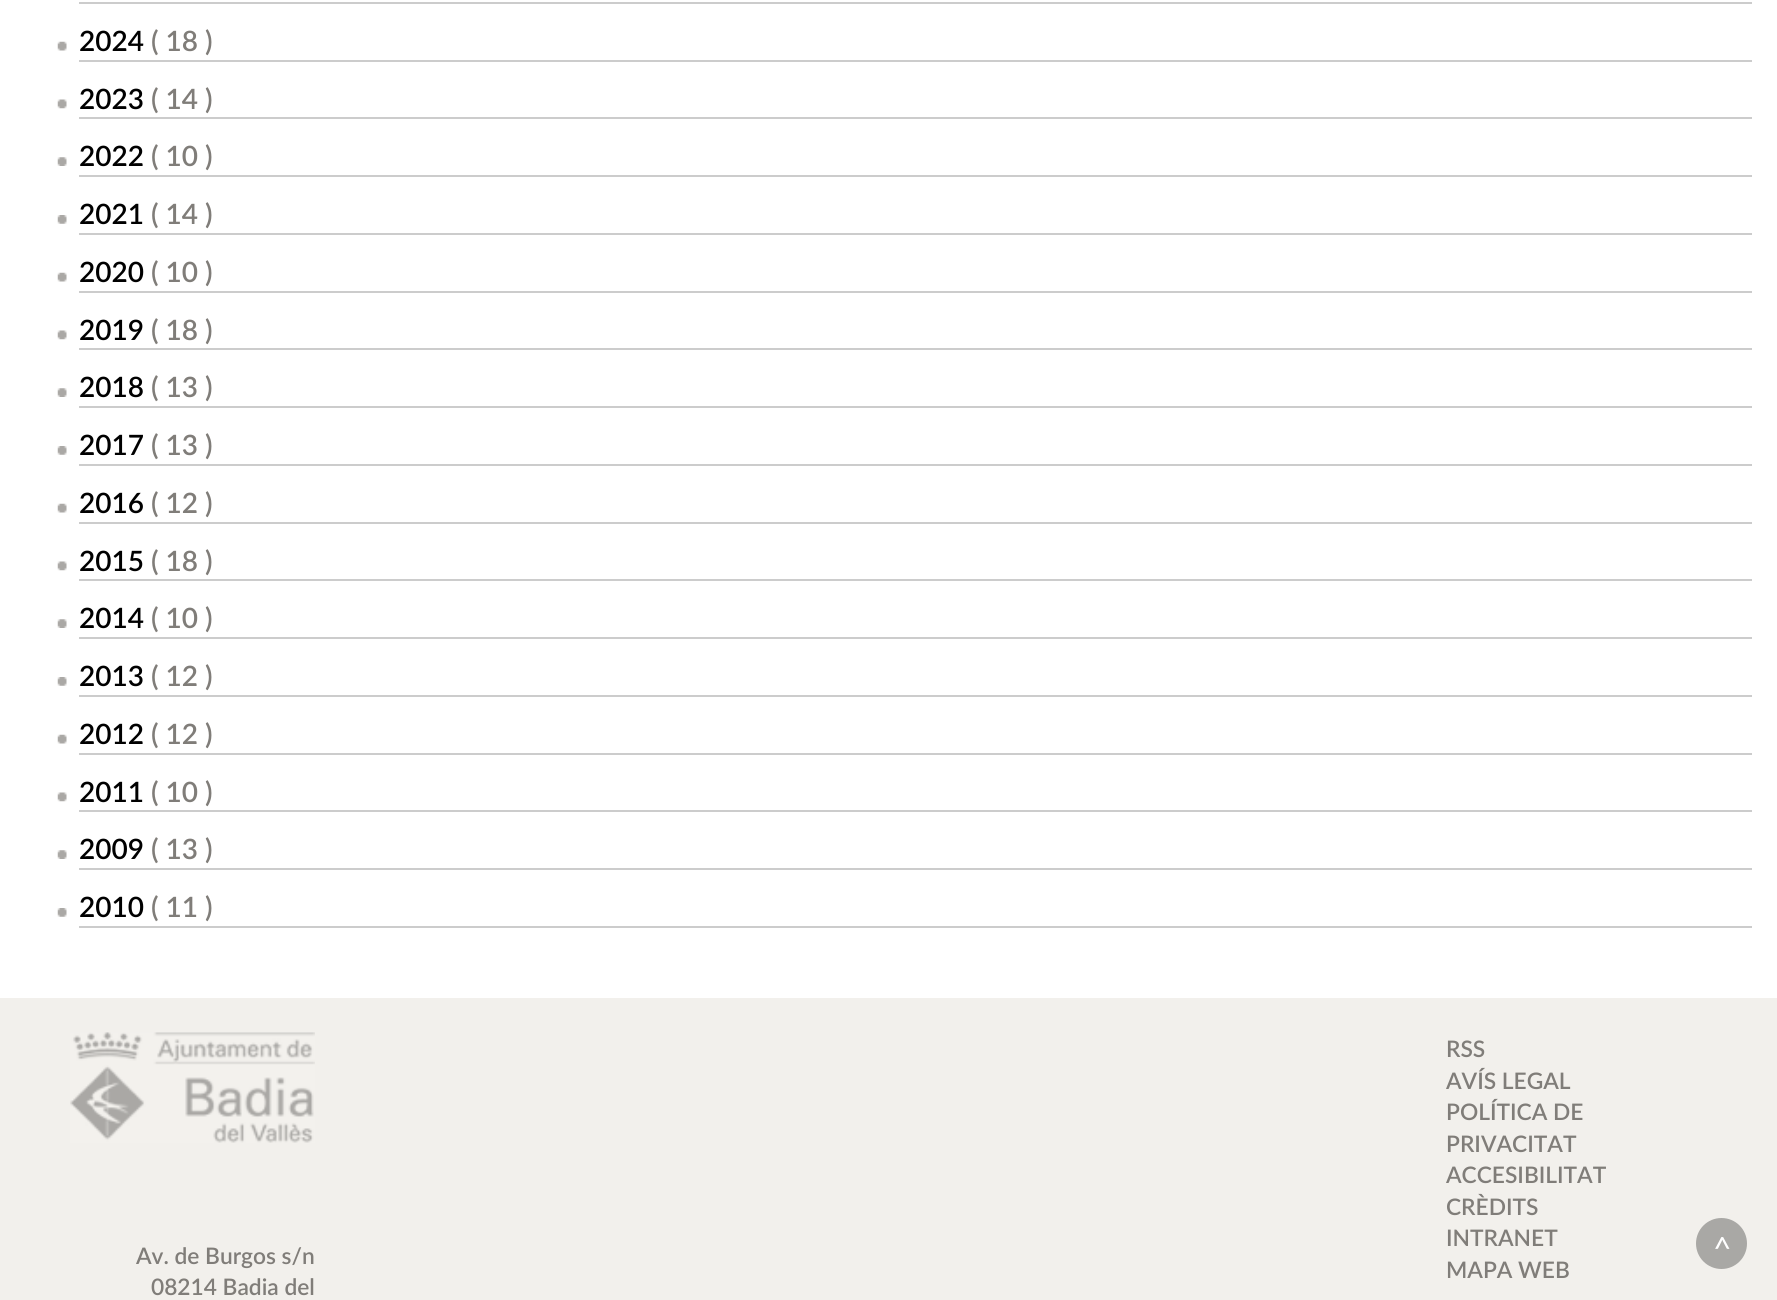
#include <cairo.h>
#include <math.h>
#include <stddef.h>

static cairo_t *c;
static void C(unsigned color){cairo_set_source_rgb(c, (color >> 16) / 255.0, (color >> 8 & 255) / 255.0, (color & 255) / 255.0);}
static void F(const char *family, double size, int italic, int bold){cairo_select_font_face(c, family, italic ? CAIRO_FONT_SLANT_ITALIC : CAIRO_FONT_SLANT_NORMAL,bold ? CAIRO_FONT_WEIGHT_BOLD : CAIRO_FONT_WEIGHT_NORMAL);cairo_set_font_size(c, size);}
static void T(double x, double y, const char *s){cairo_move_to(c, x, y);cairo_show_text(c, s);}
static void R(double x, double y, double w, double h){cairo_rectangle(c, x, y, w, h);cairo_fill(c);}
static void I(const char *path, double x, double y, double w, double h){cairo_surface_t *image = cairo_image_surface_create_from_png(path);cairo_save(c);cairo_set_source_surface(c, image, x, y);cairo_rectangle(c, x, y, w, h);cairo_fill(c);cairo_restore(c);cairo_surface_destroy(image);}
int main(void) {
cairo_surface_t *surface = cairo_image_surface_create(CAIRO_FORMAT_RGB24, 1777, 1300);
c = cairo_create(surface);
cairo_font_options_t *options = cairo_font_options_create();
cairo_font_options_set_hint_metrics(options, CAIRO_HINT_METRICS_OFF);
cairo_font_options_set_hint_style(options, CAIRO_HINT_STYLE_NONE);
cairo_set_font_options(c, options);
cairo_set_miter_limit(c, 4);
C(0xffffff);
cairo_paint(c);
C(0xcccccc);
R(79,2,1673,2);
R(79,60,1673,2);
I("1.png",57,41,10,10);
F("Lato SemiBold",28,0,0);
C(0x000000);
T(79,51,"2024");
C(0x807d79);
T(151,51,"( 18 )");
C(0xcccccc);
R(79,117,1673,2);
I("2.png",57,99,10,10);
C(0x000000);
T(79,109,"2023");
C(0x807d79);
T(151,109,"( 14 )");
C(0xcccccc);
R(79,175,1673,2);
I("3.png",57,157,10,9);
C(0x000000);
T(79,166,"2022");
C(0x807d79);
T(151,166,"( 10 )");
C(0xcccccc);
R(79,233,1673,2);
I("4.png",57,215,10,9);
C(0x000000);
T(79,224,"2021");
C(0x807d79);
T(151,224,"( 14 )");
C(0xcccccc);
R(79,291,1673,2);
I("1.png",57,272,10,10);
C(0x000000);
T(79,282,"2020");
C(0x807d79);
T(151,282,"( 10 )");
C(0xcccccc);
R(79,348,1673,2);
I("2.png",57,330,10,10);
C(0x000000);
T(79,340,"2019");
C(0x807d79);
T(151,340,"( 18 )");
C(0xcccccc);
R(79,406,1673,2);
I("3.png",57,388,10,9);
C(0x000000);
T(79,397,"2018");
C(0x807d79);
T(151,397,"( 13 )");
C(0xcccccc);
R(79,464,1673,2);
I("4.png",57,446,10,9);
C(0x000000);
T(79,455,"2017");
C(0x807d79);
T(151,455,"( 13 )");
C(0xcccccc);
R(79,522,1673,2);
I("1.png",57,503,10,10);
C(0x000000);
T(79,513,"2016");
C(0x807d79);
T(151,513,"( 12 )");
C(0xcccccc);
R(79,579,1673,2);
I("2.png",57,561,10,10);
C(0x000000);
T(79,571,"2015");
C(0x807d79);
T(151,571,"( 18 )");
C(0xcccccc);
R(79,637,1673,2);
I("3.png",57,619,10,9);
C(0x000000);
T(79,628,"2014");
C(0x807d79);
T(151,628,"( 10 )");
C(0xcccccc);
R(79,695,1673,2);
I("4.png",57,677,10,9);
C(0x000000);
T(79,686,"2013");
C(0x807d79);
T(151,686,"( 12 )");
C(0xcccccc);
R(79,753,1673,2);
I("1.png",57,734,10,10);
C(0x000000);
T(79,744,"2012");
C(0x807d79);
T(151,744,"( 12 )");
C(0xcccccc);
R(79,810,1673,2);
I("2.png",57,792,10,10);
C(0x000000);
T(79,802,"2011");
C(0x807d79);
T(151,802,"( 10 )");
C(0xcccccc);
R(79,868,1673,2);
I("3.png",57,850,10,9);
C(0x000000);
T(79,859,"2009");
C(0x807d79);
T(151,859,"( 13 )");
C(0xcccccc);
R(79,926,1673,2);
I("4.png",57,908,10,9);
C(0x000000);
T(79,917,"2010");
C(0x807d79);
T(151,917,"( 11 )");
C(0xf2f0ec);
R(0,998,1777,302);
I("5.png",70,1032,245,111);
F("Lato SemiBold",22.75,0,0);
C(0x807d79);
T(136,1264,"Av. de Burgos s/n");
T(151,1295,"08214 Badia del");
T(1446,1057,"RSS");
T(1446,1089,"AVÍS LEGAL");
T(1446,1120,"POLÍTICA DE");
T(1446,1152,"PRIVACITAT");
T(1446,1183,"ACCESIBILITAT");
T(1446,1215,"CRÈDITS");
T(1446,1246,"INTRANET");
T(1446,1278,"MAPA WEB");
C(0xa9a8a5);
cairo_new_path(c);
cairo_arc(c,1721.5,1243.5,25.5,0,2 * M_PI);
cairo_fill(c);
F("Lato",32,0,0);
C(0xffffff);
T(1713,1260,"^");
cairo_surface_write_to_png(surface, "o.png");
cairo_font_options_destroy(options);
cairo_destroy(c);
cairo_surface_destroy(surface);
return 0;
}
